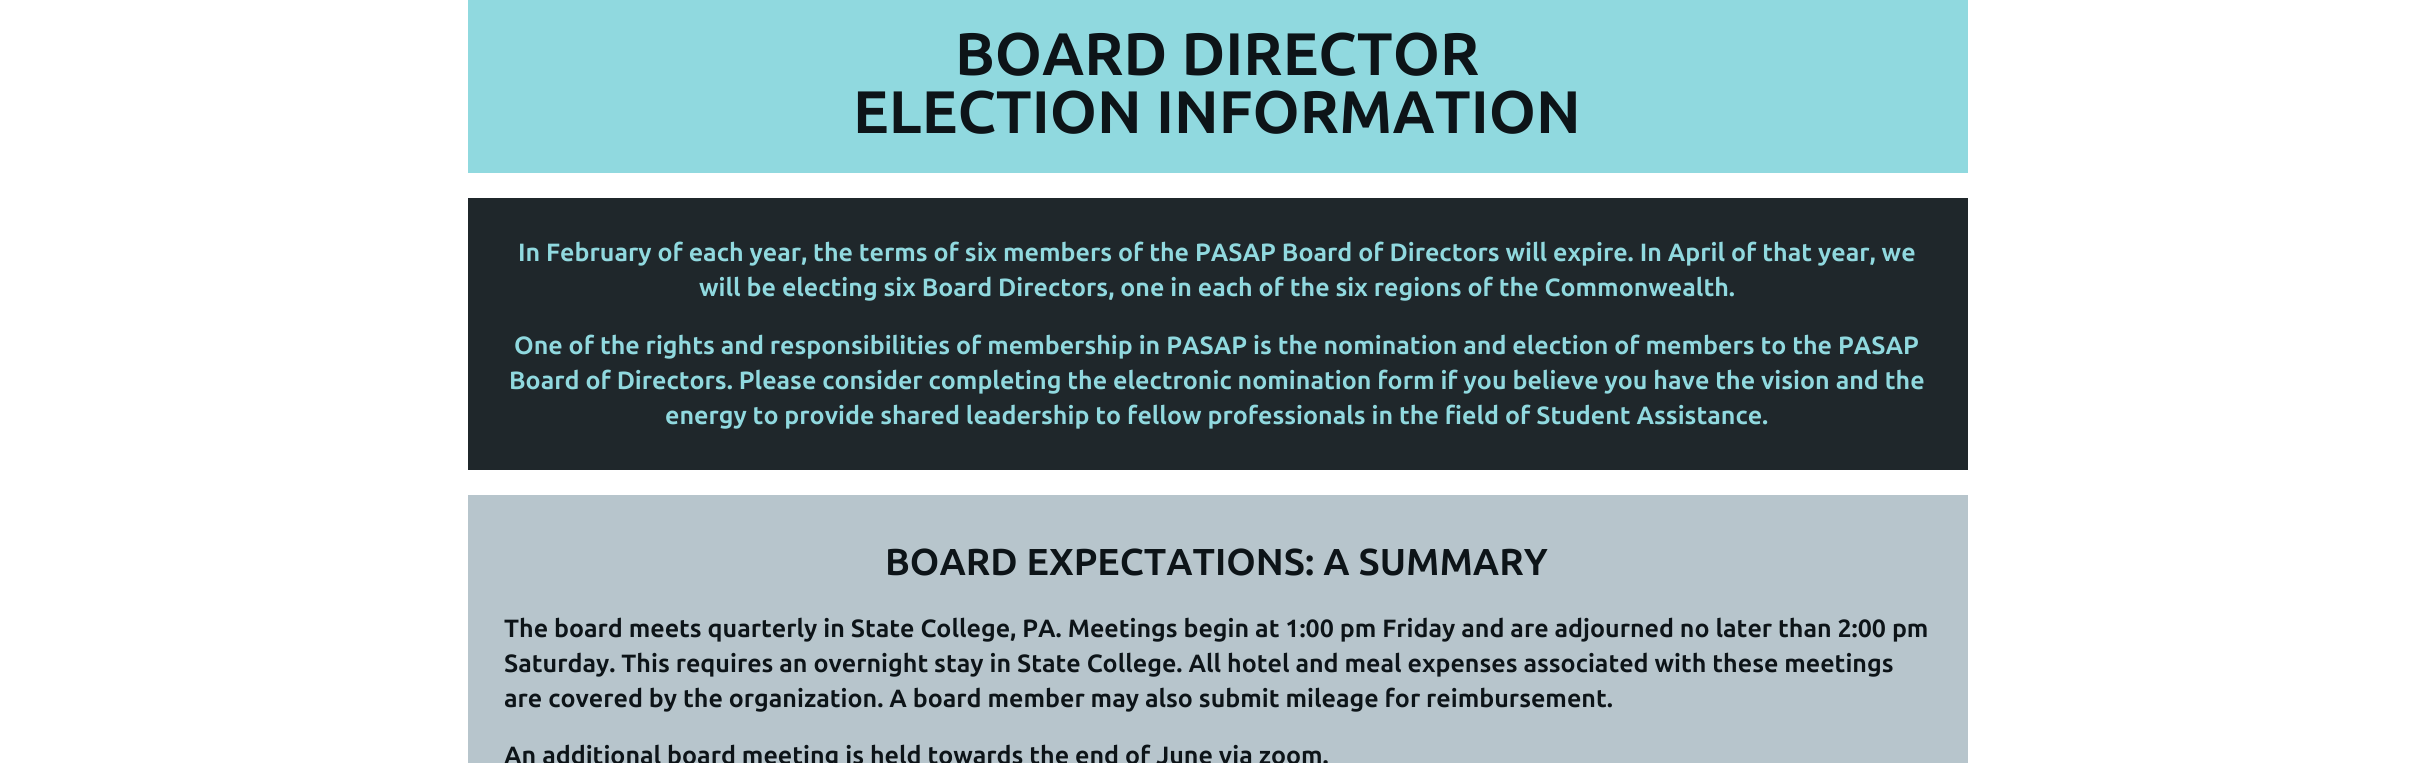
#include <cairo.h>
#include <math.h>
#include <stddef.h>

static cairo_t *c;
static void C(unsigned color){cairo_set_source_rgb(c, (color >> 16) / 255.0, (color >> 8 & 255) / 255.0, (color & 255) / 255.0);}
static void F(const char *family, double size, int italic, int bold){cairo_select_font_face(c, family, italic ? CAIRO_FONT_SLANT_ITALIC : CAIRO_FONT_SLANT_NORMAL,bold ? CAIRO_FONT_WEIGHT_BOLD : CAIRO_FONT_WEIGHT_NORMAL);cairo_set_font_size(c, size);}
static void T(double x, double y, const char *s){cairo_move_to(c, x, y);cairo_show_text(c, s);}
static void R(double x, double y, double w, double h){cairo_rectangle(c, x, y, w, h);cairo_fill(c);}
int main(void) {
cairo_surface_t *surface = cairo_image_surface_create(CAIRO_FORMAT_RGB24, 2433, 763);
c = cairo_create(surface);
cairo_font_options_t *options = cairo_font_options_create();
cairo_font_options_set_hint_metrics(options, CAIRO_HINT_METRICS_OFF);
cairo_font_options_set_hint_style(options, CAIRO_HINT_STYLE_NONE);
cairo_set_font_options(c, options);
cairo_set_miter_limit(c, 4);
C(0xffffff);
cairo_paint(c);
C(0x90d9df);
R(468,0,1500,173);
F("Ubuntu",60,0,1);
C(0x0d1418);
T(955,75,"BOARD DIRECTOR");
T(853,133,"ELECTION INFORMATION");
C(0x1f272b);
R(468,198,1500,272);
F("Ubuntu",25,0,1);
C(0x90d9df);
T(518,261,"In February of each year, the terms of six members of the PASAP Board of Directors will expire. In April of that year, we");
T(699,296,"will be electing six Board Directors, one in each of the six regions of the Commonwealth.");
T(514,354,"One of the rights and responsibilities of membership in PASAP is the nomination and election of members to the PASAP");
T(509,389,"Board of Directors. Please consider completing the electronic nomination form if you believe you have the vision and the");
T(665,424,"energy to provide shared leadership to fellow professionals in the field of Student Assistance.");
C(0xb7c5cc);
R(468,495,1500,268);
F("Ubuntu",37.5,0,1);
C(0x0d1418);
T(885,575,"BOARD EXPECTATIONS: A SUMMARY");
F("Ubuntu",25,0,1);
T(504,637,"The board meets quarterly in State College, PA. Meetings begin at 1:00 pm Friday and are adjourned no later than 2:00 pm");
T(504,672,"Saturday. This requires an overnight stay in State College. All hotel and meal expenses associated with these meetings");
T(504,707,"are covered by the organization. A board member may also submit mileage for reimbursement.");
T(504,764,"An additional board meeting is held towards the end of June via zoom.");
cairo_surface_write_to_png(surface, "o.png");
cairo_font_options_destroy(options);
cairo_destroy(c);
cairo_surface_destroy(surface);
return 0;
}
